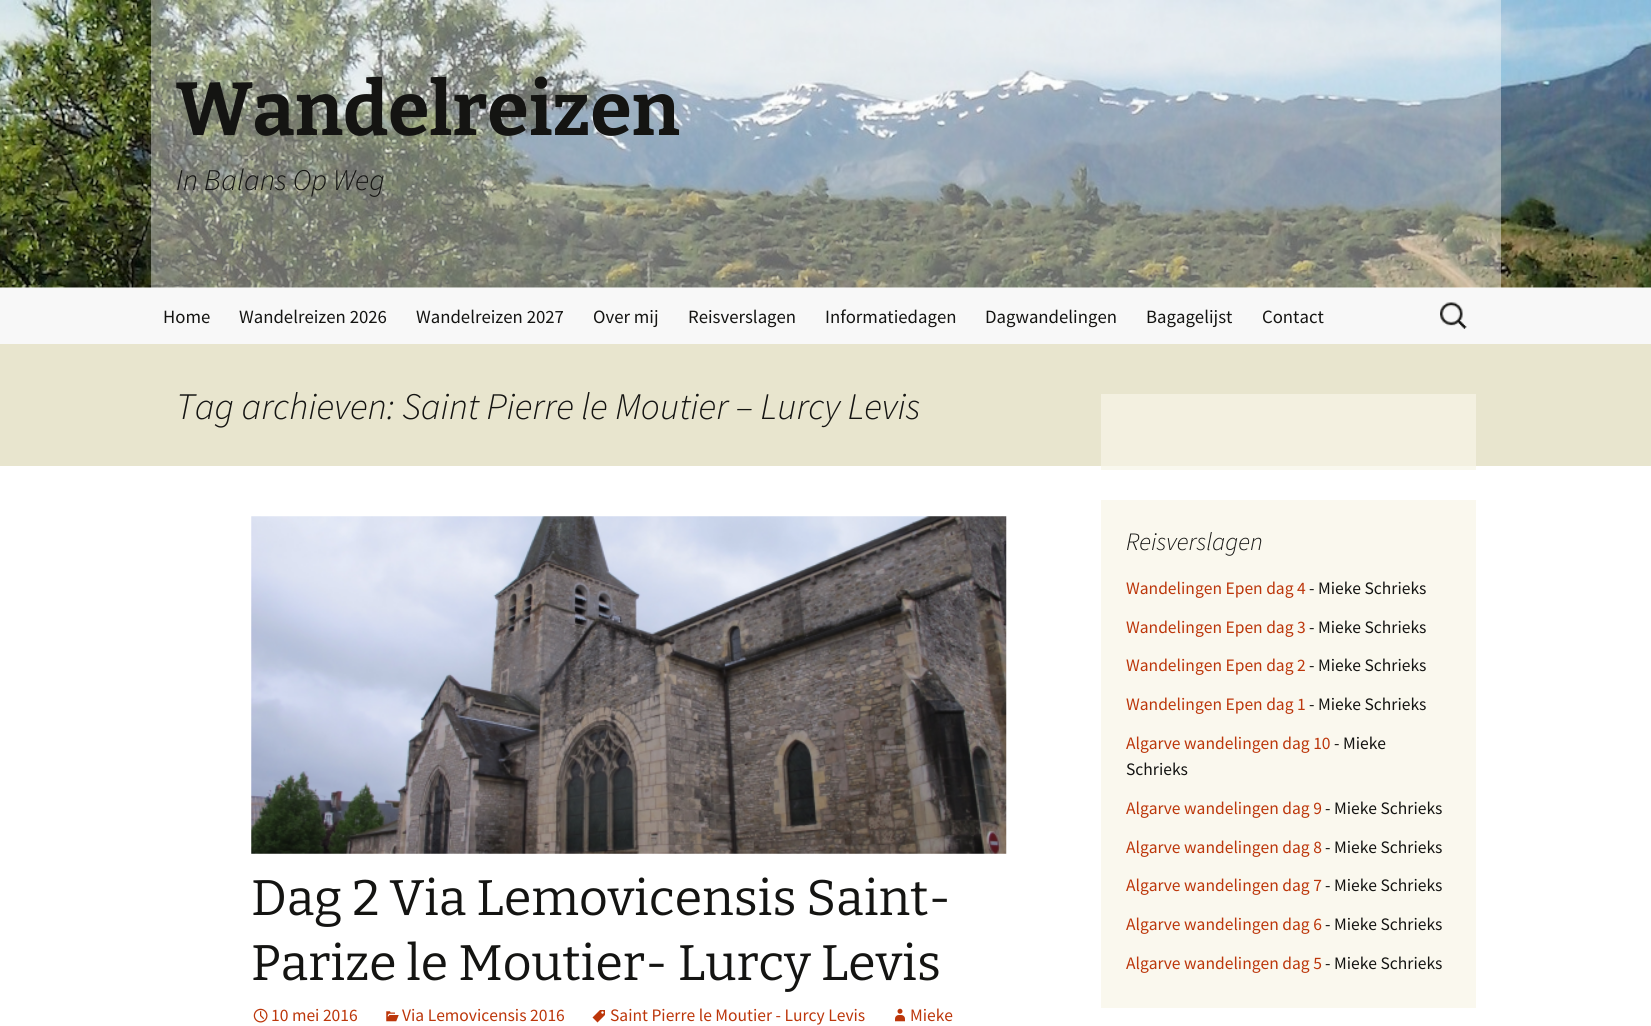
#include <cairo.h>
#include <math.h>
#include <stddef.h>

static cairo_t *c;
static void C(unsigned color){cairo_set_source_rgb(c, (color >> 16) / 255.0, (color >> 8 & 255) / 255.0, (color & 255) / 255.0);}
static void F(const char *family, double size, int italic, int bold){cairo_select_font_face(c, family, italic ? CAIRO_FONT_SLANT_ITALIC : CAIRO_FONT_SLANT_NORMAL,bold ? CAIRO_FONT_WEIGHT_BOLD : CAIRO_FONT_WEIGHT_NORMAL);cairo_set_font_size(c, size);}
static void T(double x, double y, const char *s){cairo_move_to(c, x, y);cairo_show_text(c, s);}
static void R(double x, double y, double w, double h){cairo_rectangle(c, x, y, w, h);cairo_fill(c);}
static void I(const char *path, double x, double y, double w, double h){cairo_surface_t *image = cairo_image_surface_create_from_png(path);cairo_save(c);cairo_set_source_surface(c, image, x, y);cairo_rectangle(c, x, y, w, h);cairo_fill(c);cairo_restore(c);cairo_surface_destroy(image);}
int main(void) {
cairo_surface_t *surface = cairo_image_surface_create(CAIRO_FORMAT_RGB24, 1651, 1026);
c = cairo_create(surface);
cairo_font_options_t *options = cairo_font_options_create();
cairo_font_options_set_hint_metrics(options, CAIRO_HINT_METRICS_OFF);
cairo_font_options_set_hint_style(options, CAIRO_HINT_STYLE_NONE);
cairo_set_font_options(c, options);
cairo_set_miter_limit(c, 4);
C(0xffffff);
cairo_paint(c);
C(0xf9f8ee);
R(1101,466,375,4);
I("1.png",0,0,1651,288);
cairo_set_source_rgba(c,1,1,1,0.4);
R(151,0,1350,288);
F("Bitter Thin",75,0,0);
C(0x141412);
T(176,135,"Wandelreizen");
F("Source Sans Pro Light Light",30,1,0);
T(176,190,"In Balans Op Weg");
C(0xf8f8f8);
R(0,288,1651,56);
F("Source Sans Pro",18.75,0,0);
C(0x141412);
T(163,323,"Home");
T(239,323,"Wandelreizen 2026");
T(416,323,"Wandelreizen 2027");
T(593,323,"Over mij");
T(688,323,"Reisverslagen");
T(825,323,"Informatiedagen");
T(985,323,"Dagwandelingen");
T(1146,323,"Bagagelijst");
T(1262,323,"Contact");
I("2.png",1440,302,27,27);
C(0xe8e5ce);
R(0,344,1651,122);
C(0xf3f0e0);
R(1101,394,375,72);
F("Source Sans Pro Light Light",37.5,1,0);
C(0x141412);
T(176,419,"Tag archieven: Saint Pierre le Moutier – Lurcy Levis");
I("3.png",251,516,756,338);
F("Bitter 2 Thin",50,0,0);
T(251,915,"Dag 2 Via Lemovicensis Saint-");
T(251,980,"Parize le Moutier- Lurcy Levis");
I("4.png",253,1008,15,15);
F("Source Sans Pro",17.5,0,0);
C(0xbc360a);
T(271,1021,"10 mei 2016");
I("5.png",386,1011,13,11);
T(402,1021,"Via Lemovicensis 2016");
I("6.png",592,1010,13,13);
T(610,1021,"Saint Pierre le Moutier - Lurcy Levis");
I("7.png",895,1008,10,14);
T(910,1021,"Mieke");
C(0xfaf8ee);
R(1101,500,375,508);
F("Source Sans Pro Light Light",25,1,0);
C(0x141412);
T(1126,550,"Reisverslagen");
F("Source Sans Pro",17.5,0,0);
C(0xbc360a);
T(1126,594,"Wandelingen Epen dag 4");
C(0x141412);
T(1309,594,"- Mieke Schrieks");
C(0xbc360a);
T(1126,633,"Wandelingen Epen dag 3");
C(0x141412);
T(1309,633,"- Mieke Schrieks");
C(0xbc360a);
T(1126,671,"Wandelingen Epen dag 2");
C(0x141412);
T(1309,671,"- Mieke Schrieks");
C(0xbc360a);
T(1126,710,"Wandelingen Epen dag 1");
C(0x141412);
T(1309,710,"- Mieke Schrieks");
C(0xbc360a);
T(1126,749,"Algarve wandelingen dag 10");
C(0x141412);
T(1334,749,"- Mieke");
T(1126,775,"Schrieks");
C(0xbc360a);
T(1126,814,"Algarve wandelingen dag 9");
C(0x141412);
T(1325,814,"- Mieke Schrieks");
C(0xbc360a);
T(1126,853,"Algarve wandelingen dag 8");
C(0x141412);
T(1325,853,"- Mieke Schrieks");
C(0xbc360a);
T(1126,891,"Algarve wandelingen dag 7");
C(0x141412);
T(1325,891,"- Mieke Schrieks");
C(0xbc360a);
T(1126,930,"Algarve wandelingen dag 6");
C(0x141412);
T(1325,930,"- Mieke Schrieks");
C(0xbc360a);
T(1126,969,"Algarve wandelingen dag 5");
C(0x141412);
T(1325,969,"- Mieke Schrieks");
cairo_surface_write_to_png(surface, "o.png");
cairo_font_options_destroy(options);
cairo_destroy(c);
cairo_surface_destroy(surface);
return 0;
}
